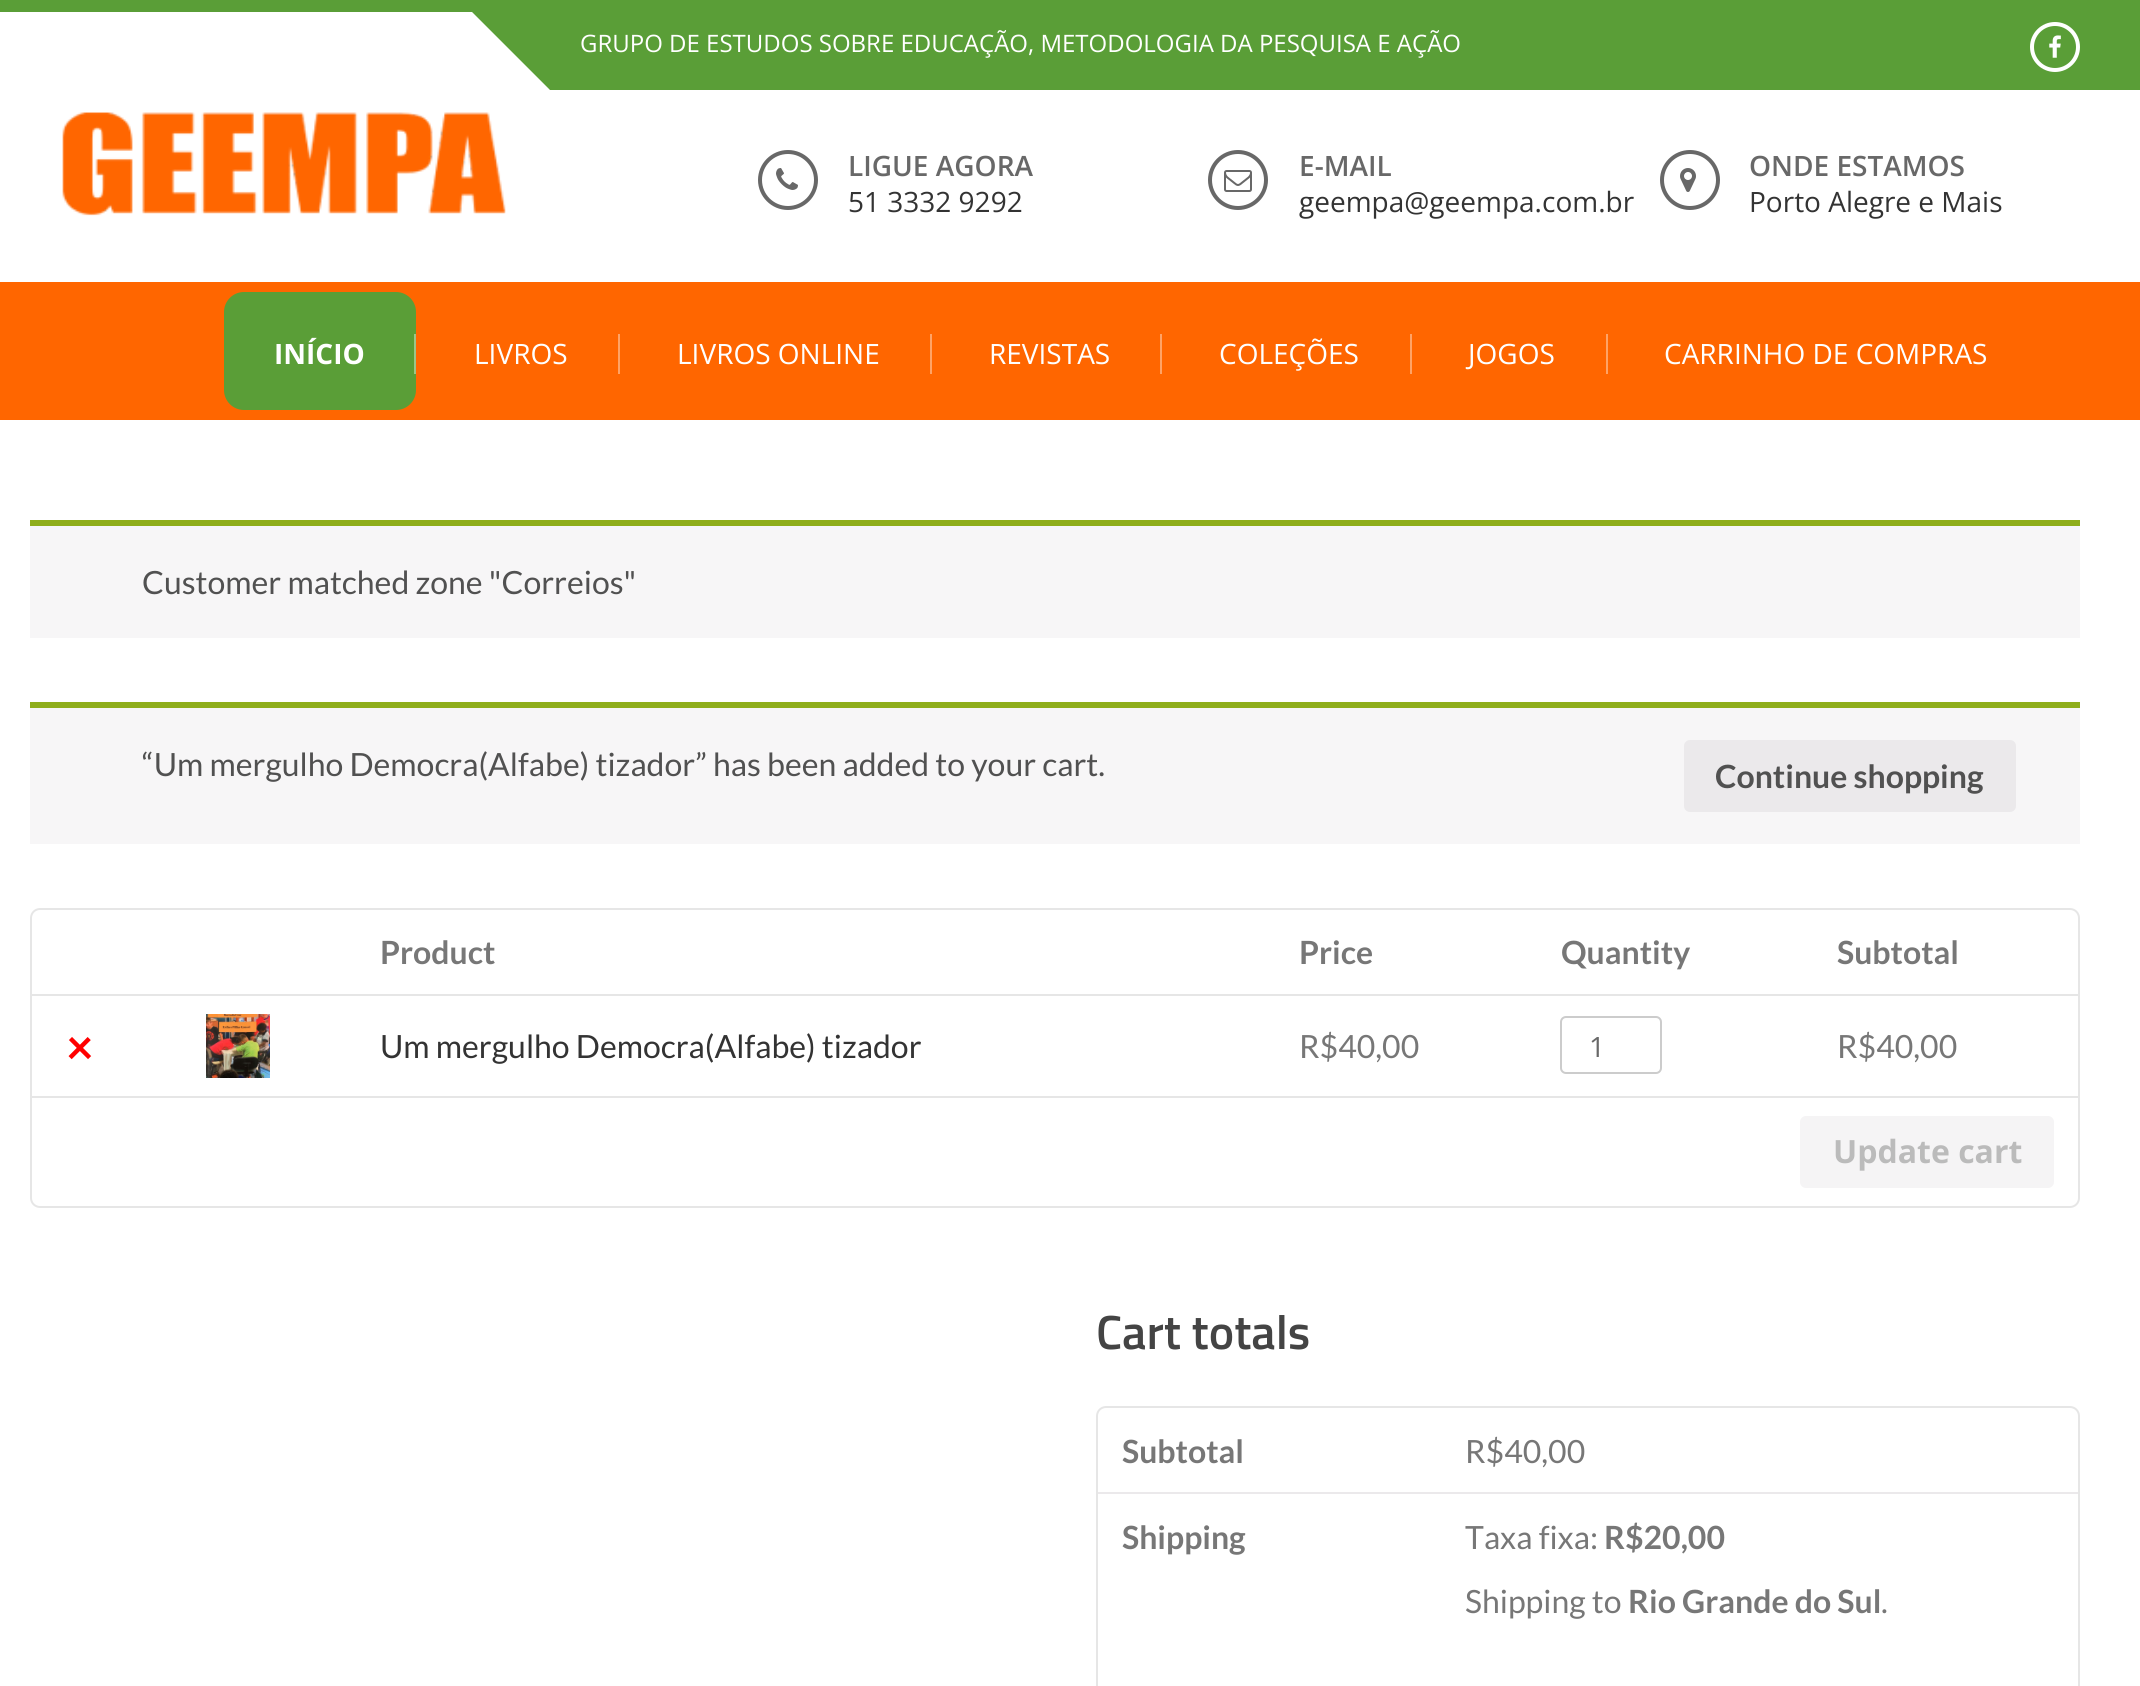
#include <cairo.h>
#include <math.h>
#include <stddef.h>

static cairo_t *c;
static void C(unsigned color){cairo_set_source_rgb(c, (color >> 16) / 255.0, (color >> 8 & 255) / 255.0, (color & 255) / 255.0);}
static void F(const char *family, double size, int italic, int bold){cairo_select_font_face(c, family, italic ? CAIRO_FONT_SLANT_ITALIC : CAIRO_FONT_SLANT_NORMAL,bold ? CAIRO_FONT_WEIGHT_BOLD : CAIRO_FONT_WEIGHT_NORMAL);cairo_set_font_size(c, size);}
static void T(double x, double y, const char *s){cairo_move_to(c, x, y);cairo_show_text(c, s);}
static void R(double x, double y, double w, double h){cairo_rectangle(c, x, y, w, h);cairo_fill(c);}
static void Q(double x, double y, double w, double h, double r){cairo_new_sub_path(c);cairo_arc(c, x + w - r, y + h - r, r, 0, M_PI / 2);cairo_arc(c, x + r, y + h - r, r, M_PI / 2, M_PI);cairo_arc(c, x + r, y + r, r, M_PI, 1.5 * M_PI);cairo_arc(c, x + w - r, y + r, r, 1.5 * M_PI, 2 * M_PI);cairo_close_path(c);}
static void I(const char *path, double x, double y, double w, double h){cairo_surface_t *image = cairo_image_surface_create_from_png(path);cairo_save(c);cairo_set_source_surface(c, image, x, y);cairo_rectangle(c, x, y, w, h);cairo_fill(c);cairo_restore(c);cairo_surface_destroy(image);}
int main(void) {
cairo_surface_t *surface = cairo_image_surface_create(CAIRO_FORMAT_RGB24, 2140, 1686);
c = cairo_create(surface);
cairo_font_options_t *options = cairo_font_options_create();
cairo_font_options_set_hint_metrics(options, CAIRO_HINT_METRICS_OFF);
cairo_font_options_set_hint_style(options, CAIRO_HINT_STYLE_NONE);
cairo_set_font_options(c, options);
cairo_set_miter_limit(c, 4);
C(0xffffff);
cairo_paint(c);
C(0x5a9e37);
R(0,0,2140,12);
R(550,12,1590,78);
cairo_new_path(c);
cairo_move_to(c,472,12);
cairo_line_to(c,550,12);
cairo_line_to(c,550,90);
cairo_close_path(c);
cairo_fill(c);
F("Open Sans",24,0,0);
C(0xffffff);
T(580,52,"GRUPO DE ESTUDOS SOBRE EDUCAÇÃO, METODOLOGIA DA PESQUISA E AÇÃO");
cairo_new_path(c);
cairo_arc(c,2055,47,23,0,2 * M_PI);
cairo_set_line_width(c,4);
cairo_stroke(c);
I("1.png",2049,35,12,23);
I("2.png",62,112,444,104);
cairo_arc(c,788,180,28,0,2 * M_PI);
C(0x686868);
cairo_stroke(c);
I("3.png",776,168,22,22);
F("Open Sans SemiBold",28,0,0);
T(848,176,"LIGUE AGORA");
F("Open Sans",28,0,0);
C(0x333333);
T(848,212,"51 3332 9292");
cairo_new_path(c);
cairo_arc(c,1238,180,28,0,2 * M_PI);
C(0x686868);
cairo_stroke(c);
I("4.png",1224,170,28,22);
F("Open Sans SemiBold",28,0,0);
T(1299,176,"E-MAIL");
F("Open Sans",28,0,0);
C(0x333333);
T(1299,212,"geempa@geempa.com.br");
cairo_new_path(c);
cairo_arc(c,1690,180,28,0,2 * M_PI);
C(0x686868);
cairo_stroke(c);
I("5.png",1680,168,16,24);
F("Open Sans SemiBold",28,0,0);
T(1749,176,"ONDE ESTAMOS");
F("Open Sans",28,0,0);
C(0x333333);
T(1749,212,"Porto Alegre e Mais");
C(0xff6600);
R(0,282,2140,138);
C(0x5a9e37);
Q(224,292,192,118,20);
cairo_fill(c);
C(0x9cc587);
R(414,334,2,40);
F("Open Sans",28,0,1);
C(0xffffff);
T(274,364,"INÍCIO");
C(0xffa366);
R(618,334,2,40);
F("Open Sans",28,0,0);
C(0xffffff);
T(474,364,"LIVROS");
C(0xffa366);
R(930,334,2,40);
C(0xffffff);
T(677,364,"LIVROS ONLINE");
C(0xffa366);
R(1160,334,2,40);
C(0xffffff);
T(989,364,"REVISTAS");
C(0xffa366);
R(1410,334,2,40);
C(0xffffff);
T(1219,364,"COLEÇÕES");
C(0xffa366);
R(1606,334,2,40);
C(0xffffff);
T(1468,364,"JOGOS");
T(1664,364,"CARRINHO DE COMPRAS");
C(0xf7f6f7);
R(30,526,2050,112);
C(0x8fae1b);
R(30,520,2050,6);
F("Lato",32,0,0);
C(0x515151);
T(142,594,"Customer matched zone \"Correios\"");
C(0xf7f6f7);
R(30,708,2050,136);
C(0x8fae1b);
R(30,702,2050,6);
C(0x515151);
T(142,776,"“Um mergulho Democra(Alfabe) tizador” has been added to your cart.");
C(0xebe9eb);
Q(1684,740,332,72,6);
cairo_fill(c);
F("Lato",32,0,1);
C(0x515151);
T(1715,788,"Continue shopping");
Q(31,909,2048,298,9);
C(0xe6e6e6);
cairo_set_line_width(c,2);
cairo_stroke(c);
C(0x777777);
T(380,964,"Product");
T(1299,964,"Price");
T(1561,964,"Quantity");
T(1837,964,"Subtotal");
C(0xe6e6e6);
R(32,994,2046,2);
F("Lato",48,0,1);
C(0xff0000);
T(66,1064,"×");
I("6.png",206,1014,64,64);
F("Lato",32,0,0);
C(0x333333);
T(380,1058,"Um mergulho Democra(Alfabe) tizador");
C(0x777777);
T(1299,1058,"R$40,00");
Q(1561,1017,100,56,5);
C(0xcccccc);
cairo_stroke(c);
F("Open Sans",28,0,0);
C(0x686868);
T(1589,1057,"1");
F("Lato",32,0,0);
C(0x777777);
T(1837,1058,"R$40,00");
C(0xe6e6e6);
R(32,1096,2046,2);
C(0xf5f4f5);
Q(1800,1116,254,72,6);
cairo_fill(c);
F("Open Sans",32,0,1);
C(0xbbbbbb);
T(1833,1163,"Update cart");
F("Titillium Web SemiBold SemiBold",48,0,0);
C(0x444444);
T(1096,1349,"Cart totals");
Q(1097,1407,982,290,9);
C(0xe6e6e6);
cairo_stroke(c);
F("Lato",32,0,1);
C(0x777777);
T(1122,1463,"Subtotal");
F("Lato",32,0,0);
T(1465,1463,"R$40,00");
C(0xebe9eb);
R(1098,1492,980,2);
F("Lato",32,0,1);
C(0x777777);
T(1122,1549,"Shipping");
F("Lato",32,0,0);
T(1465,1549,"Taxa fixa:");
F("Lato",32,0,1);
T(1604,1549,"R$20,00");
F("Lato",32,0,0);
T(1465,1613,"Shipping to");
F("Lato",32,0,1);
T(1628,1613,"Rio Grande do Sul");
F("Lato",32,0,0);
T(1881,1613,".");
cairo_surface_write_to_png(surface, "o.png");
cairo_font_options_destroy(options);
cairo_destroy(c);
cairo_surface_destroy(surface);
return 0;
}
